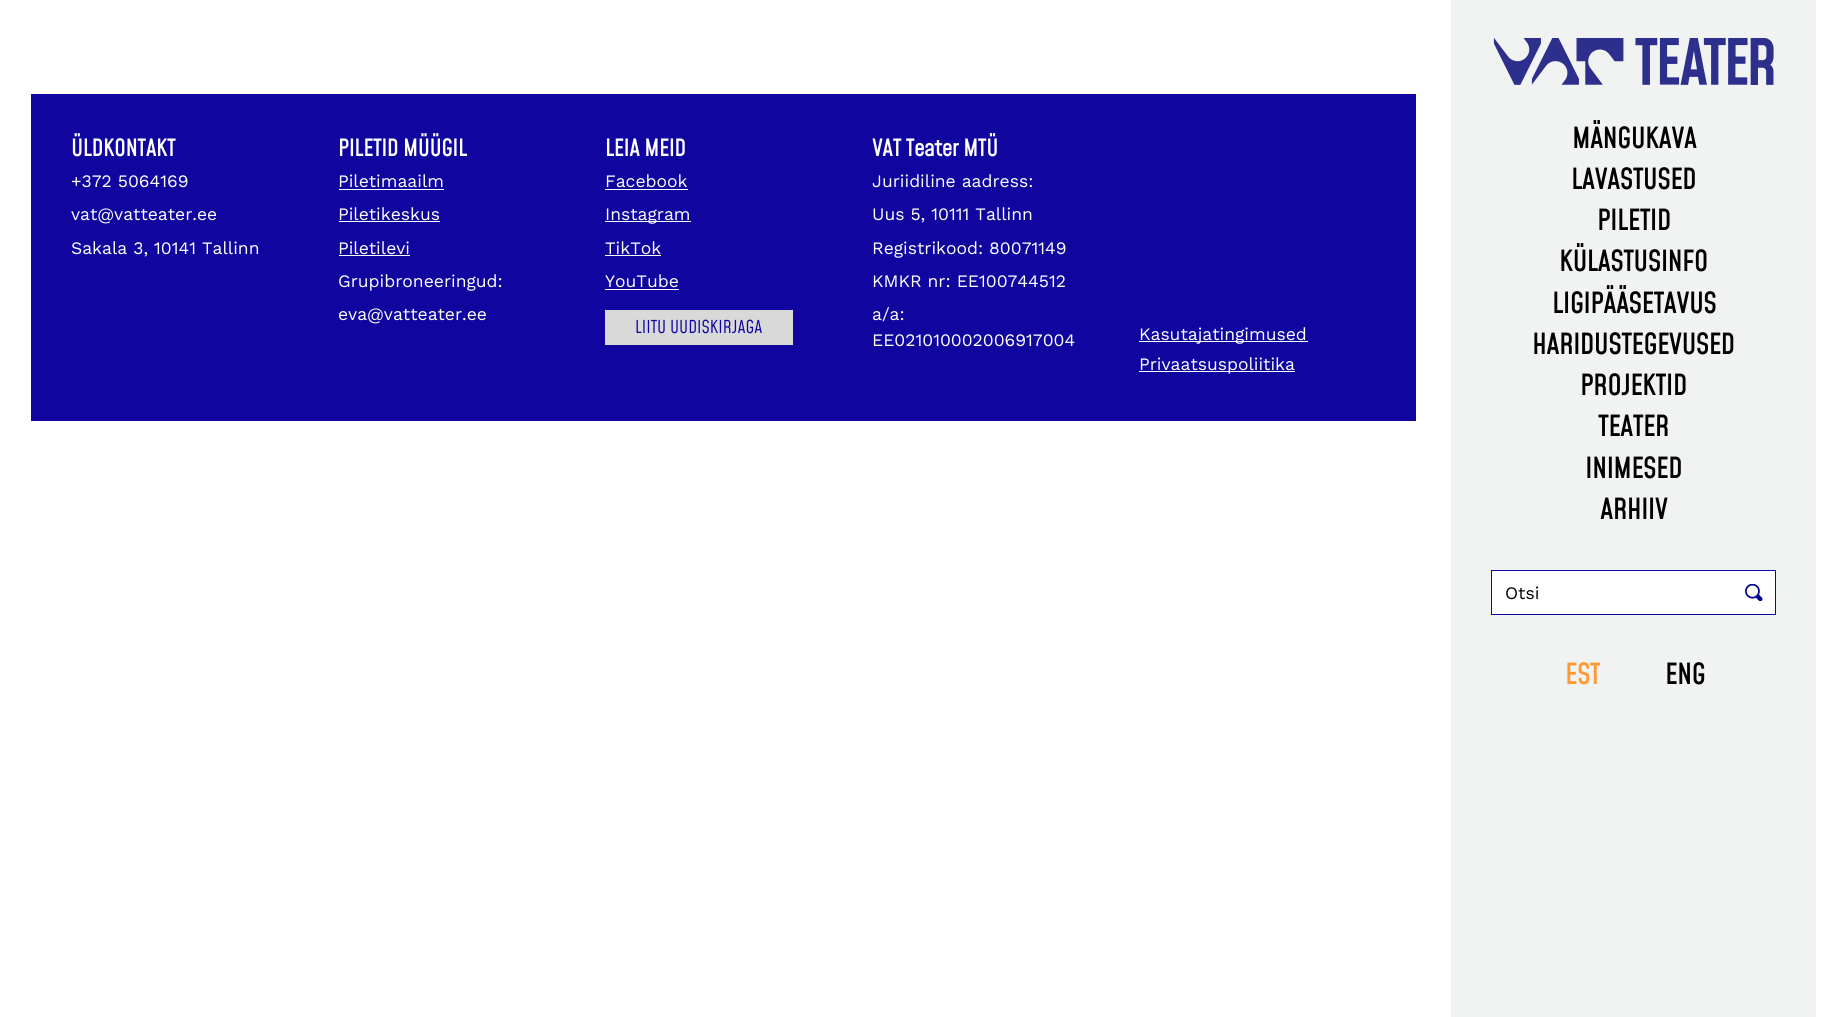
#include <cairo.h>
#include <math.h>
#include <stddef.h>

static cairo_t *c;
static void C(unsigned color){cairo_set_source_rgb(c, (color >> 16) / 255.0, (color >> 8 & 255) / 255.0, (color & 255) / 255.0);}
static void F(const char *family, double size, int italic, int bold){cairo_select_font_face(c, family, italic ? CAIRO_FONT_SLANT_ITALIC : CAIRO_FONT_SLANT_NORMAL,bold ? CAIRO_FONT_WEIGHT_BOLD : CAIRO_FONT_WEIGHT_NORMAL);cairo_set_font_size(c, size);}
static void T(double x, double y, const char *s){cairo_move_to(c, x, y);cairo_show_text(c, s);}
static void R(double x, double y, double w, double h){cairo_rectangle(c, x, y, w, h);cairo_fill(c);}
static void I(const char *path, double x, double y, double w, double h){cairo_surface_t *image = cairo_image_surface_create_from_png(path);cairo_save(c);cairo_set_source_surface(c, image, x, y);cairo_rectangle(c, x, y, w, h);cairo_fill(c);cairo_restore(c);cairo_surface_destroy(image);}
int main(void) {
cairo_surface_t *surface = cairo_image_surface_create(CAIRO_FORMAT_RGB24, 1847, 1017);
c = cairo_create(surface);
cairo_font_options_t *options = cairo_font_options_create();
cairo_font_options_set_hint_metrics(options, CAIRO_HINT_METRICS_OFF);
cairo_font_options_set_hint_style(options, CAIRO_HINT_STYLE_NONE);
cairo_set_font_options(c, options);
cairo_set_miter_limit(c, 4);
C(0xffffff);
cairo_paint(c);
C(0x10069f);
R(31,94,1385,327);
F("Mohave",22.5,0,1);
C(0xffffff);
T(71,156,"ÜLDKONTAKT");
F("Work Sans",17.5,0,0);
T(71,187,"+372 5064169");
T(71,220,"vat@vatteater.ee");
T(71,254,"Sakala 3, 10141 Tallinn");
F("Mohave",22.5,0,1);
T(338,156,"PILETID MÜÜGIL");
F("Work Sans",17.5,0,0);
T(338,187,"Piletimaailm");
R(339,189,105,1);
T(338,220,"Piletikeskus");
R(339,221,101,1);
T(338,254,"Piletilevi");
R(339,255,71,1);
T(338,287,"Grupibroneeringud:");
T(338,320,"eva@vatteater.ee");
F("Mohave",22.5,0,1);
T(605,156,"LEIA MEID");
F("Work Sans",17.5,0,0);
T(605,187,"Facebook");
R(605,189,83,1);
R(605,221,86,1);
T(605,220,"Instagram");
T(605,254,"TikTok");
R(605,255,56,1);
T(605,287,"YouTube");
R(605,289,74,1);
C(0xd9d9d9);
R(605,310,188,35);
F("Mohave Light",17.5,0,0);
C(0x10069f);
T(635,333,"LIITU UUDISKIRJAGA");
F("Mohave",22.5,0,1);
C(0xffffff);
T(872,156,"VAT Teater MTÜ");
F("Work Sans",17.5,0,0);
T(872,187,"Juriidiline aadress:");
T(872,220,"Uus 5, 10111 Tallinn");
T(872,254,"Registrikood: 80071149");
T(872,287,"KMKR nr: EE100744512");
T(872,320,"a/a:");
T(872,346,"EE021010002006917004");
R(1139,341,169,1);
T(1139,340,"Kasutajatingimused");
R(1139,371,156,1);
T(1139,370,"Privaatsuspoliitika");
C(0xf1f2f2);
R(1451,0,365,1017);
I("1.png",1493,38,281,47);
F("Mohave",27.5,0,1);
C(0x000000);
T(1572,148,"MÄNGUKAVA");
T(1571,189,"LAVASTUSED");
T(1597,230,"PILETID");
T(1559,271,"KÜLASTUSINFO");
T(1552,313,"LIGIPÄÄSETAVUS");
T(1532,354,"HARIDUSTEGEVUSED");
T(1580,395,"PROJEKTID");
T(1598,436,"TEATER");
T(1585,478,"INIMESED");
T(1600,519,"ARHIIV");
C(0xffffff);
R(1492,571,283,43);
C(0x10069f);
R(1491,570,285,1);
R(1491,614,242,1);
R(1491,570,1,45);
F("Work Sans",17.5,0,0);
C(0x000000);
T(1505,599,"Otsi");
C(0x10069f);
R(1775,570,1,45);
R(1733,614,43,1);
I("2.png",1745,584,18,17);
F("Mohave",27.5,0,1);
C(0xff9933);
T(1565,684,"EST");
C(0x000000);
T(1665,684,"ENG");
cairo_surface_write_to_png(surface, "o.png");
cairo_font_options_destroy(options);
cairo_destroy(c);
cairo_surface_destroy(surface);
return 0;
}
